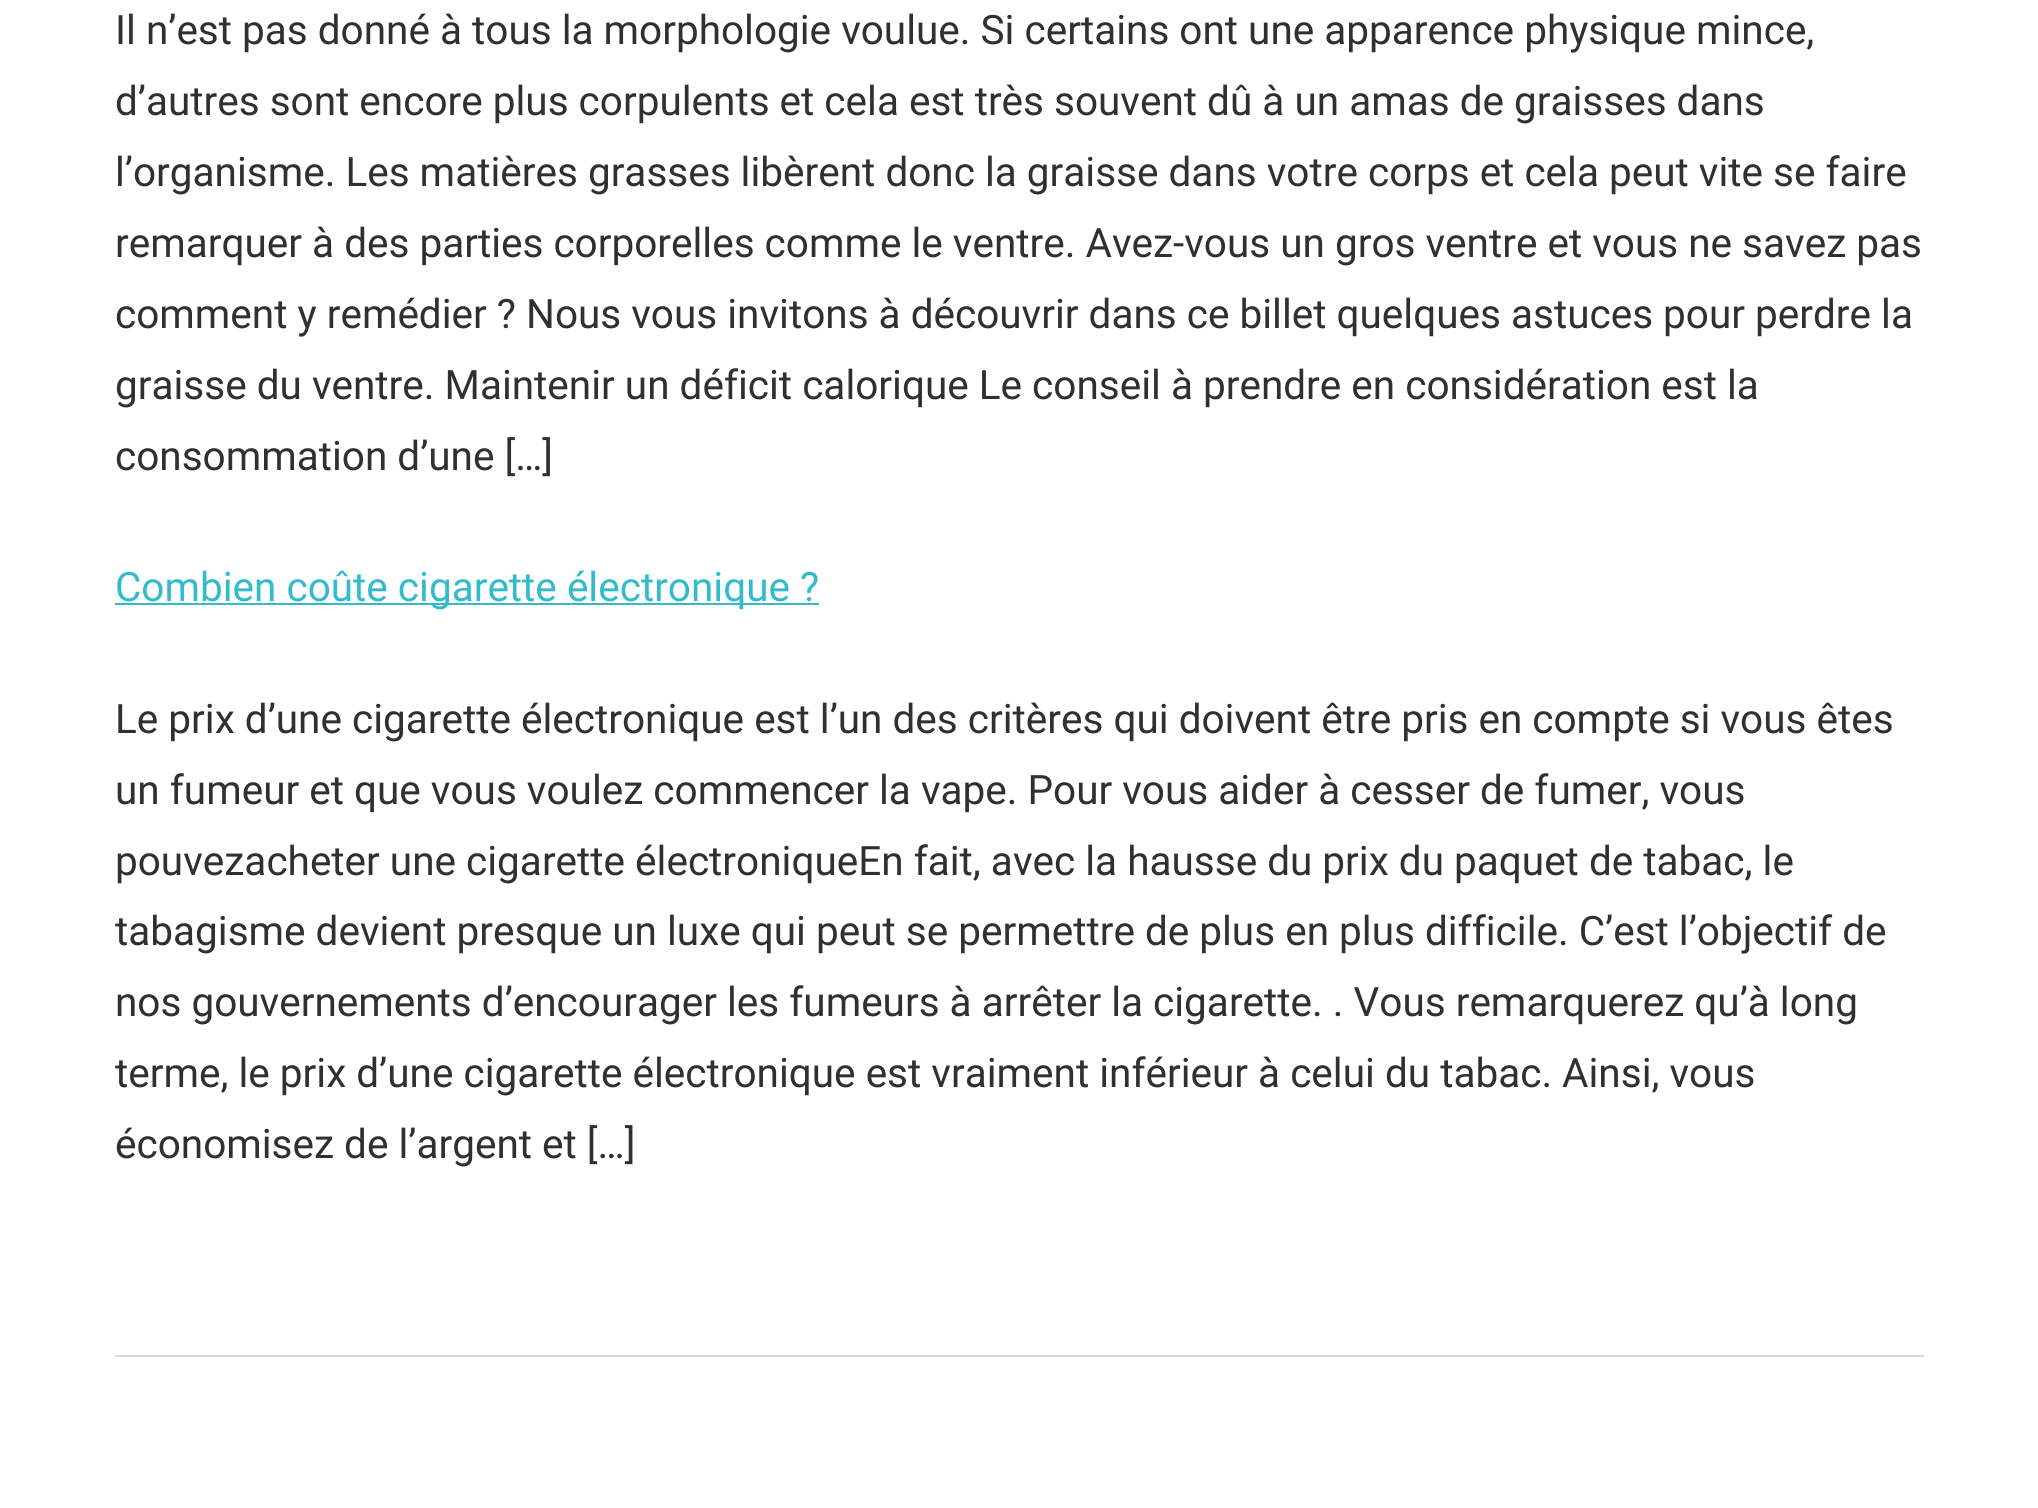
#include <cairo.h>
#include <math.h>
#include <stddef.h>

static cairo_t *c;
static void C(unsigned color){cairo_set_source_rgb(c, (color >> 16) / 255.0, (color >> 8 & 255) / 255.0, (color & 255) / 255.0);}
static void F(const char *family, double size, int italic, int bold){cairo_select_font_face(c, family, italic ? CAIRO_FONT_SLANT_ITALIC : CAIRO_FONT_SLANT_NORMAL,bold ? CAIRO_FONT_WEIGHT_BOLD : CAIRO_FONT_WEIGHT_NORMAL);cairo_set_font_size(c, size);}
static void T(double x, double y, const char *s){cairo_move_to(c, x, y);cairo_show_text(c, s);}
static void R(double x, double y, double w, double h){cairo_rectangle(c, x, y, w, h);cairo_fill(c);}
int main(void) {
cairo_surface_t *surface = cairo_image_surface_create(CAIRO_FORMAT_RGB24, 2038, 1508);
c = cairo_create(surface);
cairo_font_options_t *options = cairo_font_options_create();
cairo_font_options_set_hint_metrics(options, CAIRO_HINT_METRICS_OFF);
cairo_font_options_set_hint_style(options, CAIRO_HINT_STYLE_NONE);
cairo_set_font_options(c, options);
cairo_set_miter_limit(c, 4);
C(0xffffff);
cairo_paint(c);
F("Roboto",40.5,0,0);
C(0x303030);
T(115,44,"Il n’est pas donné à tous la morphologie voulue. Si certains ont une apparence physique mince,");
T(115,115,"d’autres sont encore plus corpulents et cela est très souvent dû à un amas de graisses dans");
T(115,186,"l’organisme. Les matières grasses libèrent donc la graisse dans votre corps et cela peut vite se faire");
T(115,257,"remarquer à des parties corporelles comme le ventre. Avez-vous un gros ventre et vous ne savez pas");
T(115,328,"comment y remédier ? Nous vous invitons à découvrir dans ce billet quelques astuces pour perdre la");
T(115,399,"graisse du ventre. Maintenir un déficit calorique Le conseil à prendre en considération est la");
T(115,470,"consommation d’une […]");
C(0x33bbcc);
R(115,603,704,2);
T(115,601,"Combien coûte cigarette électronique ?");
C(0x303030);
T(115,733,"Le prix d’une cigarette électronique est l’un des critères qui doivent être pris en compte si vous êtes");
T(115,804,"un fumeur et que vous voulez commencer la vape. Pour vous aider à cesser de fumer, vous");
T(115,875,"pouvezacheter une cigarette électroniqueEn fait, avec la hausse du prix du paquet de tabac, le");
T(115,945,"tabagisme devient presque un luxe qui peut se permettre de plus en plus difficile. C’est l’objectif de");
T(115,1016,"nos gouvernements d’encourager les fumeurs à arrêter la cigarette. . Vous remarquerez qu’à long");
T(115,1087,"terme, le prix d’une cigarette électronique est vraiment inférieur à celui du tabac. Ainsi, vous");
T(115,1158,"économisez de l’argent et […]");
C(0xd9d9d9);
R(115,1355,1809,2);
cairo_surface_write_to_png(surface, "o.png");
cairo_font_options_destroy(options);
cairo_destroy(c);
cairo_surface_destroy(surface);
return 0;
}
